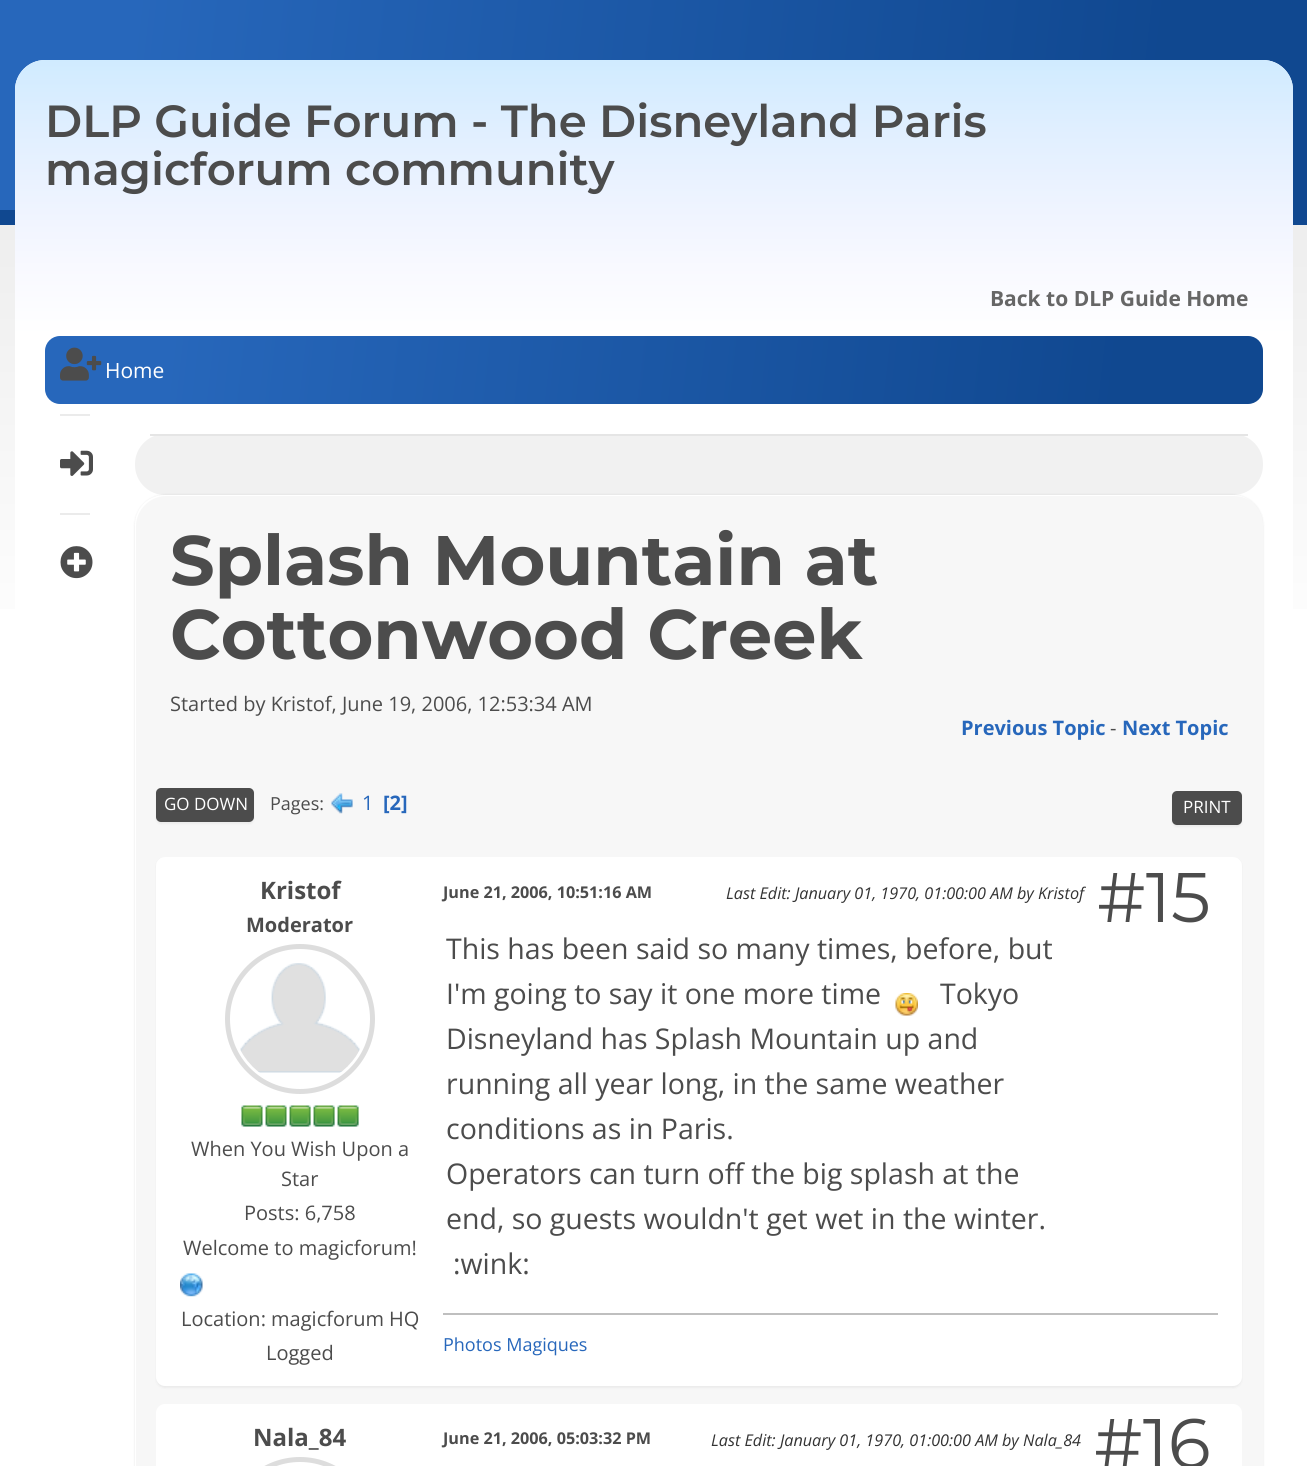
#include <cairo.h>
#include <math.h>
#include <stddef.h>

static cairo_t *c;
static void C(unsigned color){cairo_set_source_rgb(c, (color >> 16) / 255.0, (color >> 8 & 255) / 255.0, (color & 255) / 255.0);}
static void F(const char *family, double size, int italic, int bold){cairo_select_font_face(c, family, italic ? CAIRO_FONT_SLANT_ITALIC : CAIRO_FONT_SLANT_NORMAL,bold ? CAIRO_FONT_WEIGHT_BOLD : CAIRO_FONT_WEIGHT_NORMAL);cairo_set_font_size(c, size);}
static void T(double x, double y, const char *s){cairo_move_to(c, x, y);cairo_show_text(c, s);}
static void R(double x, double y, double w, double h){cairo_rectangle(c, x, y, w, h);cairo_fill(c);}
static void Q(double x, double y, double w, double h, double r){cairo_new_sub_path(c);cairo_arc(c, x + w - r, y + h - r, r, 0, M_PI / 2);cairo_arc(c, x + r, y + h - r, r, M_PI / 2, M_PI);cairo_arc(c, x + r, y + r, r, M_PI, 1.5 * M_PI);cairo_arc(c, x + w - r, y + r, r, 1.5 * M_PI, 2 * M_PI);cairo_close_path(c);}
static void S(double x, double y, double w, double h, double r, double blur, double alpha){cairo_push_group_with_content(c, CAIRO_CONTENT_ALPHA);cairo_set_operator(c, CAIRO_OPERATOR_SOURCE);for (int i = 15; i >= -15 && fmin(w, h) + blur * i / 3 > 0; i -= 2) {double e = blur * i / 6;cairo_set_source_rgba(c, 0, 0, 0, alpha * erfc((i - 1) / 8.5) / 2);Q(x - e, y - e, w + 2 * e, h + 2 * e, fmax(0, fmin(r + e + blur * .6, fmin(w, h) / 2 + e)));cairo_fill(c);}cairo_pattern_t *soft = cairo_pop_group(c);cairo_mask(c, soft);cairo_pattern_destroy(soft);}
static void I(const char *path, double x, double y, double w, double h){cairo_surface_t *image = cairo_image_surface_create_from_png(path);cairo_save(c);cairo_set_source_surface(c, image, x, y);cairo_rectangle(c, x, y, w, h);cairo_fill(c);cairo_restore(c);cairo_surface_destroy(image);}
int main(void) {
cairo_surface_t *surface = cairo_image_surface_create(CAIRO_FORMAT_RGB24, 1307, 1466);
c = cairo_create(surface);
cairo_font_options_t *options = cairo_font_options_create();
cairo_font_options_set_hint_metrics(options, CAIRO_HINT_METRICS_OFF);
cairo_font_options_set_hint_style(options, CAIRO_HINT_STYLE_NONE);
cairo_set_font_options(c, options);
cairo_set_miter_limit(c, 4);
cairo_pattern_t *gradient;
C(0xffffff);
cairo_paint(c);
gradient = cairo_pattern_create_linear(-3.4,30,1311,180);
cairo_pattern_add_color_stop_rgba(gradient,.1,0.153,0.404,0.733,1);
cairo_pattern_add_color_stop_rgba(gradient,.88,0.063,0.282,0.565,1);
cairo_set_source(c,gradient);
cairo_pattern_destroy(gradient);
R(0,0,1307,210);
C(0x104890);
R(0,210,1307,15);
gradient = cairo_pattern_create_linear(654,675,654,225);
cairo_pattern_add_color_stop_rgba(gradient,0,1,1,1,1);
cairo_pattern_add_color_stop_rgba(gradient,1,0.933,0.933,0.933,1);
cairo_set_source(c,gradient);
cairo_pattern_destroy(gradient);
R(0,225,1307,384);
C(0xffffff);
Q(15,60,1278,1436,30);
cairo_fill(c);
gradient = cairo_pattern_create_linear(654,60,654,336);
cairo_pattern_add_color_stop_rgba(gradient,0,0.816,0.922,1,1);
cairo_pattern_add_color_stop_rgba(gradient,.25,0.878,0.937,1,1);
cairo_pattern_add_color_stop_rgba(gradient,.5,0.929,0.953,1,1);
cairo_pattern_add_color_stop_rgba(gradient,.75,0.973,0.976,1,1);
cairo_pattern_add_color_stop_rgba(gradient,1,1,1,1,1);
cairo_set_source(c,gradient);
cairo_pattern_destroy(gradient);
cairo_new_path(c);
cairo_move_to(c,45,60);
cairo_line_to(c,1263,60);
cairo_curve_to(c,1279.5,60,1293,73.5,1293,90);
cairo_line_to(c,1293,336);
cairo_line_to(c,15,336);
cairo_line_to(c,15,90);
cairo_curve_to(c,15,73.5,28.5,60,45,60);
cairo_close_path(c);
cairo_fill(c);
F("Montserrat SemiBold",45,0,0);
C(0x4c4c4c);
T(45,137,"DLP Guide Forum - The Disneyland Paris");
T(45,185,"magicforum community");
F("Open Sans",21,0,1);
C(0x666666);
T(990,306,"Back to DLP Guide Home");
gradient = cairo_pattern_create_linear(49,301,1259,439);
cairo_pattern_add_color_stop_rgba(gradient,.1,0.153,0.404,0.733,1);
cairo_pattern_add_color_stop_rgba(gradient,.88,0.063,0.282,0.565,1);
cairo_set_source(c,gradient);
cairo_pattern_destroy(gradient);
Q(45,336,1218,68,15);
cairo_fill(c);
F("Open Sans",21,0,0);
C(0xffffff);
T(105,378,"Home");
I("1.png",60,347,42,34);
C(0xebebeb);
R(60,414,30,2);
I("2.png",60,450,33,26);
R(60,513,30,2);
I("3.png",60,546,33,33);
C(0xf1f1f1);
Q(135,434,1128,61,30);
cairo_fill(c);
C(0xe5e5e5);
R(150,434,1098,2);
C(0x000000);
S(135,495,1128,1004,30,1,.1);
C(0xf7f7f7);
Q(135,495,1128,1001,30);
cairo_fill(c);
C(0xffffff);
cairo_new_path(c);
cairo_move_to(c,166,496);
cairo_line_to(c,1234,496);
cairo_curve_to(c,1242,496,1250,499,1255,505);
cairo_curve_to(c,1250,499,1242,495,1233,495);
cairo_line_to(c,165,495);
cairo_curve_to(c,148,495,135,508,135,525);
cairo_line_to(c,135,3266);
cairo_curve_to(c,135,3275,139,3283,145,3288);
cairo_curve_to(c,139,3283,136,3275,136,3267);
cairo_line_to(c,136,526);
cairo_curve_to(c,136,510,150,496,166,496);
cairo_close_path(c);
cairo_fill(c);
F("Montserrat",70,0,1);
C(0x4c4c4c);
T(170,585,"Splash Mountain at");
T(170,659,"Cottonwood Creek");
F("Open Sans",20,0,0);
T(170,711,"Started by Kristof, June 19, 2006, 12:53:34 AM");
F("Open Sans",20,0,1);
C(0x2767bb);
T(961,735,"Previous Topic");
F("Open Sans",20,0,0);
C(0x4c4c4c);
T(1110,735,"-");
F("Open Sans",20,0,1);
C(0x2767bb);
T(1122,735,"Next Topic");
C(0x000000);
S(156,789,98,35,5,1,.05);
C(0x4c4c4c);
Q(156,788,98,34,5);
cairo_fill(c);
F("Open Sans",17,0,0);
C(0xffffff);
T(164,810,"GO DOWN");
F("Open Sans",18,0,0);
C(0x4c4c4c);
T(270,810,"Pages:");
I("4.png",331,793,22,21);
F("Open Sans",20,0,0);
C(0x2767bb);
T(362,810,"1");
F("Open Sans",20,0,1);
T(383,810,"[2]");
C(0x000000);
S(1172,792,70,35,5,1,.05);
C(0x4c4c4c);
Q(1172,791,70,34,5);
cairo_fill(c);
F("Open Sans",17,0,0);
C(0xffffff);
T(1183,813,"PRINT");
C(0x000000);
S(156,858,1086,530,9,1,.05);
C(0xffffff);
Q(156,857,1086,529,9);
cairo_fill(c);
F("Open Sans",24,0,1);
C(0x4c4c4c);
T(260,899,"Kristof");
F("Open Sans",20,0,1);
T(246,932,"Moderator");
cairo_new_path(c);
cairo_arc(c,300,1019,72.5,0,2 * M_PI);
C(0xdddddd);
cairo_set_line_width(c,5);
cairo_stroke(c);
I("5.png",240,963,120,110);
I("6.png",241,1105,22,22);
I("7.png",265,1105,22,22);
I("8.png",289,1105,22,22);
I("8.png",313,1105,22,22);
I("8.png",337,1105,22,22);
F("Open Sans",20,0,0);
C(0x4c4c4c);
T(191,1156,"When You Wish Upon a");
T(281,1186,"Star");
T(244,1220,"Posts: 6,758");
T(183,1255,"Welcome to magicforum!");
I("9.png",180,1273,23,24);
T(181,1326,"Location: magicforum HQ");
T(266,1360,"Logged");
F("Open Sans",16.2,0,1);
T(443,898,"June 21, 2006, 10:51:16 AM");
F("Open Sans",16.2,1,0);
C(0x333333);
T(726,899,"Last Edit: January 01, 1970, 01:00:00 AM by Kristof");
F("Montserrat",70,0,0);
C(0x4c4c4c);
T(1097,922,"#15");
F("Open Sans",28.5,0,0);
T(446,959,"This has been said so many times, before, but");
T(446,1004,"I'm going to say it one more time");
I("10.png",895,993,23,23);
T(940,1004,"Tokyo");
T(446,1049,"Disneyland has Splash Mountain up and");
T(446,1094,"running all year long, in the same weather");
T(446,1139,"conditions as in Paris.");
T(446,1184,"Operators can turn off the big splash at the");
T(446,1229,"end, so guests wouldn't get wet in the winter.");
T(453,1274,":wink:");
C(0xbfbfbf);
R(443,1313,775,2);
F("Open Sans",18,0,0);
C(0x2767bb);
T(443,1351,"Photos Magiques");
C(0xffffff);
Q(156,1404,1086,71,9);
cairo_fill(c);
F("Open Sans",24,0,1);
C(0x4c4c4c);
T(253,1446,"Nala_84");
Q(227.5,1459.5,145,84,72.5);
C(0xdddddd);
cairo_stroke(c);
F("Open Sans",16.2,0,1);
C(0x4c4c4c);
T(443,1444,"June 21, 2006, 05:03:32 PM");
F("Open Sans",16.2,1,0);
C(0x333333);
T(711,1446,"Last Edit: January 01, 1970, 01:00:00 AM by Nala_84");
F("Montserrat",70,0,0);
C(0x4c4c4c);
T(1094,1468,"#16");
cairo_surface_write_to_png(surface, "o.png");
cairo_font_options_destroy(options);
cairo_destroy(c);
cairo_surface_destroy(surface);
return 0;
}
